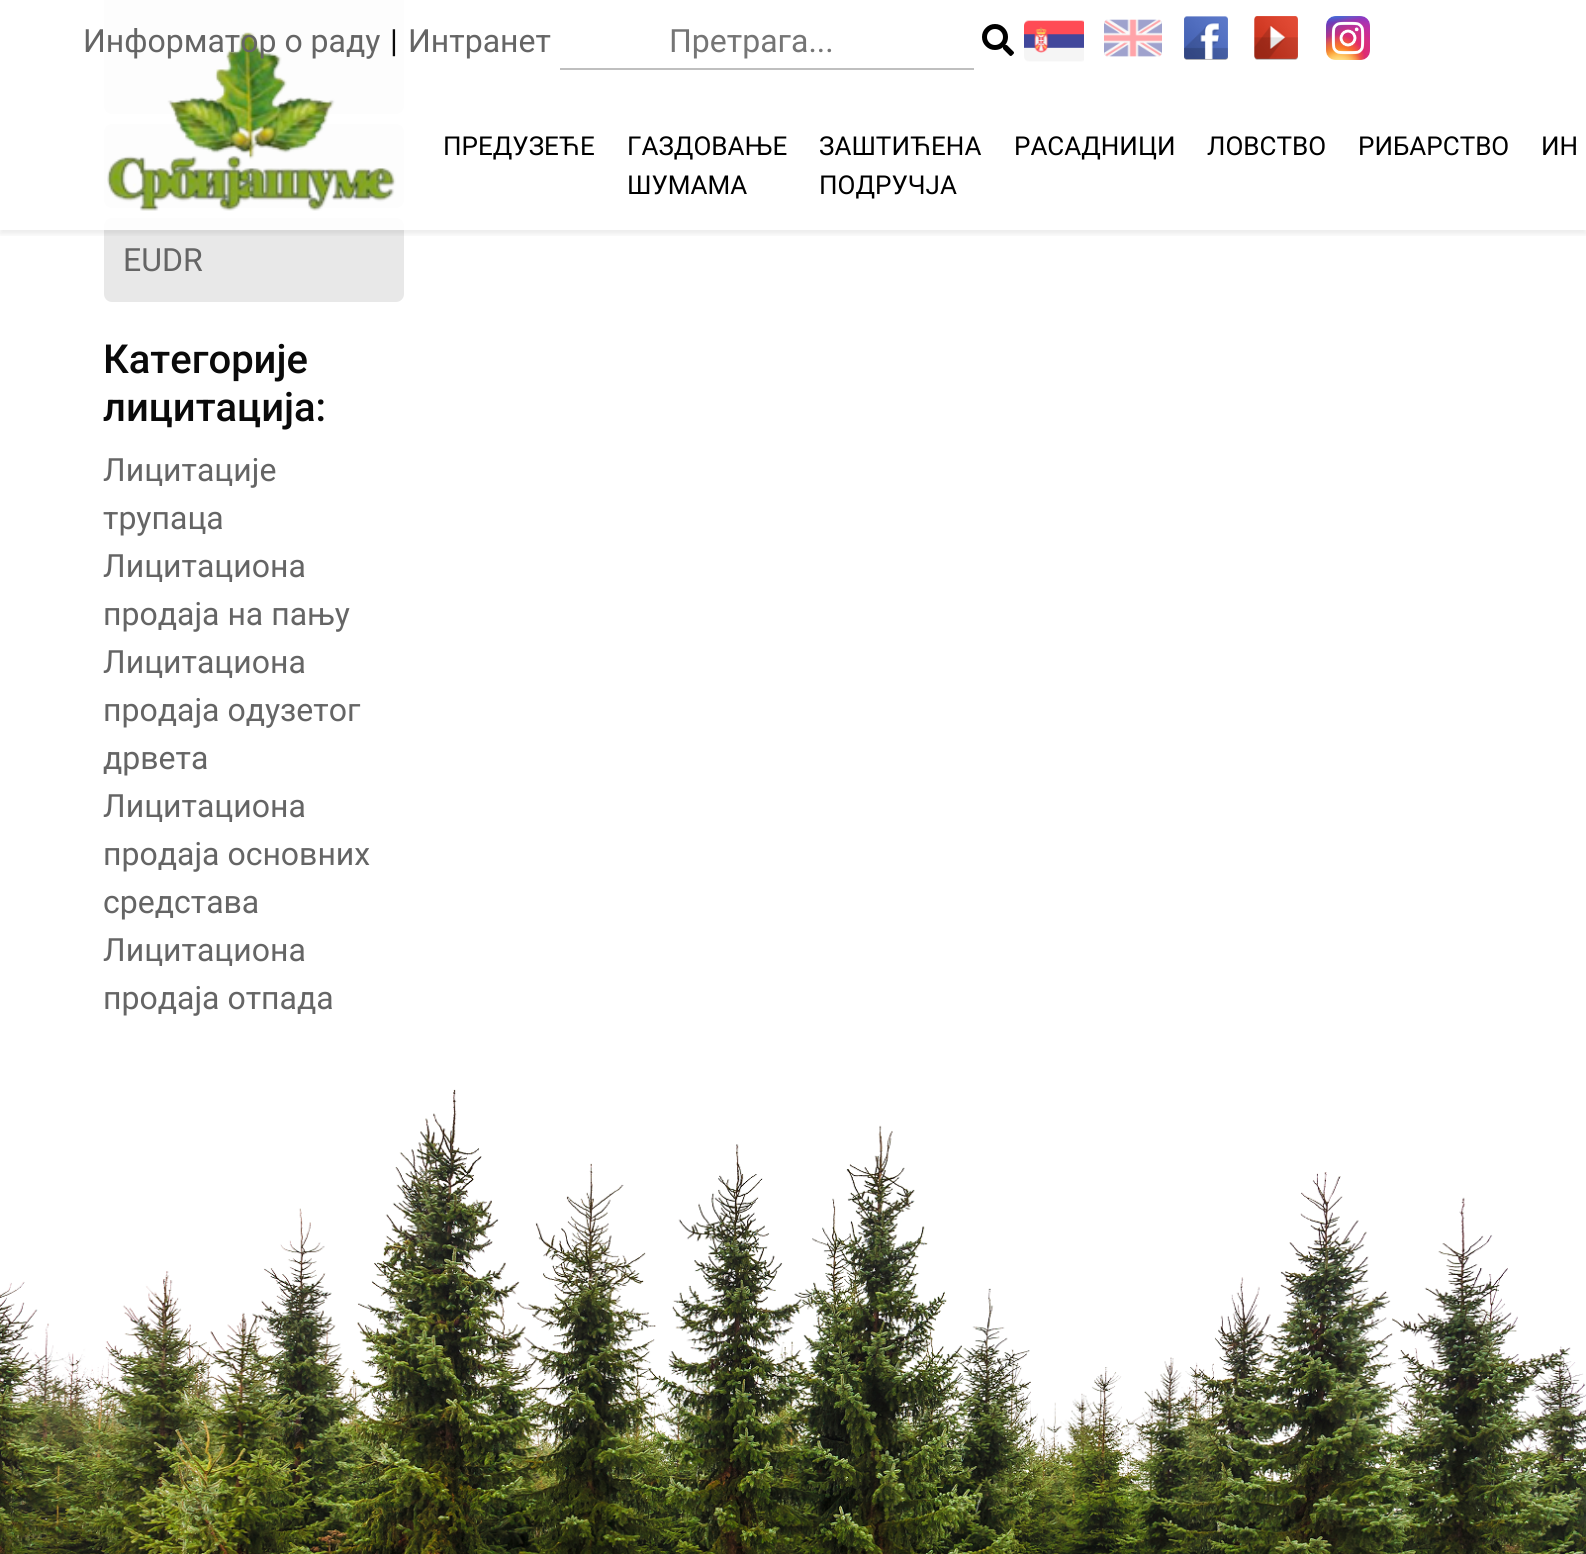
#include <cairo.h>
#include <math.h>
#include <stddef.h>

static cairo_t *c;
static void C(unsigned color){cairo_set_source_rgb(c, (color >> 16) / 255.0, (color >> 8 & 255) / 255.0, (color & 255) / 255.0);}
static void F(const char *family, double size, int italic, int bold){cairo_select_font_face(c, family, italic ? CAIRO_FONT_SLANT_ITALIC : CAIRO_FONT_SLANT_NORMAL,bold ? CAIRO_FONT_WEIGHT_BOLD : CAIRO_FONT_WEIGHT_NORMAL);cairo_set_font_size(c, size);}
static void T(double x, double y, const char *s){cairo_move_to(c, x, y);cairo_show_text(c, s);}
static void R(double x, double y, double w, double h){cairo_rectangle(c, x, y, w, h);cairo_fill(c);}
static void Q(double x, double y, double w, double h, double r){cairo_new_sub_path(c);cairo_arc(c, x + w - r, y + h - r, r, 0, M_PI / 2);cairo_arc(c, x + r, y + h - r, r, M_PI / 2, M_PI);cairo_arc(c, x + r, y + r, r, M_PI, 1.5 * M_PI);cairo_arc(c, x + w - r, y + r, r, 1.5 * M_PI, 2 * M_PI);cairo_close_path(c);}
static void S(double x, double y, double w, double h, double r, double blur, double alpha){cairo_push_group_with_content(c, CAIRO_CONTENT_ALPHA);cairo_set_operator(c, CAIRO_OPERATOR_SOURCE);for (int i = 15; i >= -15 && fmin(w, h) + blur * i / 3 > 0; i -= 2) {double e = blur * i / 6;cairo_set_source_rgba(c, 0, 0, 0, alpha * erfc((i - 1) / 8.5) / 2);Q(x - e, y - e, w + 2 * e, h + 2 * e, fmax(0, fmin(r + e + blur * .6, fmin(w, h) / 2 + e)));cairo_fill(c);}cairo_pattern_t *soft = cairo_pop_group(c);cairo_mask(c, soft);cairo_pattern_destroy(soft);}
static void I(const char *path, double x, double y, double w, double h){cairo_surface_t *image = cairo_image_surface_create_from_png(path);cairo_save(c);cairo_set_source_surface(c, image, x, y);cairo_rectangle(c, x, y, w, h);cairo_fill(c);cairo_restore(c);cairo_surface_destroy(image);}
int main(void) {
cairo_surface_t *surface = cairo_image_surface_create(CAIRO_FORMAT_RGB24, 1586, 1554);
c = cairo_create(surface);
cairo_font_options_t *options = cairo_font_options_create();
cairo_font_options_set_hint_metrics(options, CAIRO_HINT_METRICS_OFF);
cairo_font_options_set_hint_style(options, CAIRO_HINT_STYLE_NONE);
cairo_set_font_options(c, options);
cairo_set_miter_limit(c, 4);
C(0xffffff);
cairo_paint(c);
C(0xe8e8e8);
Q(104,-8,300,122,8);
cairo_fill(c);
Q(104,124,300,84,8);
cairo_fill(c);
Q(104,218,300,84,8);
cairo_fill(c);
cairo_save(c);
cairo_rectangle(c,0,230,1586,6);
cairo_clip(c);
C(0x000000);
S(0,4,1586,230,0,3,.08);
cairo_restore(c);
cairo_set_source_rgba(c,1,1,1,0.9);
R(104,0,300,230);
I("7.png",107,32,289,179);
F("Roboto",32,0,0);
C(0x656565);
T(83,52,"Информатор о раду");
C(0x0a0a0a);
T(390,52,"|");
C(0x656565);
T(408,52,"Интранет");
C(0xbfbfbf);
R(560,68,414,2);
C(0x757575);
T(669,52,"Претрага...");
I("1.png",982,24,32,32);
I("2.png",1024,20,60,42);
I("3.png",1104,19,58,38);
I("4.png",1184,16,44,44);
I("5.png",1254,16,44,44);
I("6.png",1326,16,44,44);
F("Roboto",26,0,0);
C(0x000000);
T(443,155,"ПРЕДУЗЕЋЕ");
T(627,155,"ГАЗДОВАЊЕ");
T(627,194,"ШУМАМА");
T(819,155,"ЗАШТИЋЕНА");
T(819,194,"ПОДРУЧЈА");
T(1014,155,"РАСАДНИЦИ");
T(1207,155,"ЛОВСТВО");
T(1358,155,"РИБАРСТВО");
T(1541,155,"ИН");
F("Roboto",32,0,0);
C(0x656565);
T(123,271,"EUDR");
F("Roboto Medium",40,0,0);
C(0x0a0a0a);
T(103,373,"Категорије");
T(103,421,"лицитација:");
F("Roboto",32,0,0);
C(0x656565);
T(103,481,"Лицитације");
T(103,529,"трупаца");
T(103,577,"Лицитациона");
T(103,625,"продаја на пању");
T(103,673,"Лицитациона");
T(103,721,"продаја одузетог");
T(103,769,"дрвета");
T(103,817,"Лицитациона");
T(103,865,"продаја основних");
T(103,913,"средстава");
T(103,961,"Лицитациона");
T(103,1009,"продаја отпада");
I("8.png",0,1089,1586,465);
cairo_surface_write_to_png(surface, "o.png");
cairo_font_options_destroy(options);
cairo_destroy(c);
cairo_surface_destroy(surface);
return 0;
}
